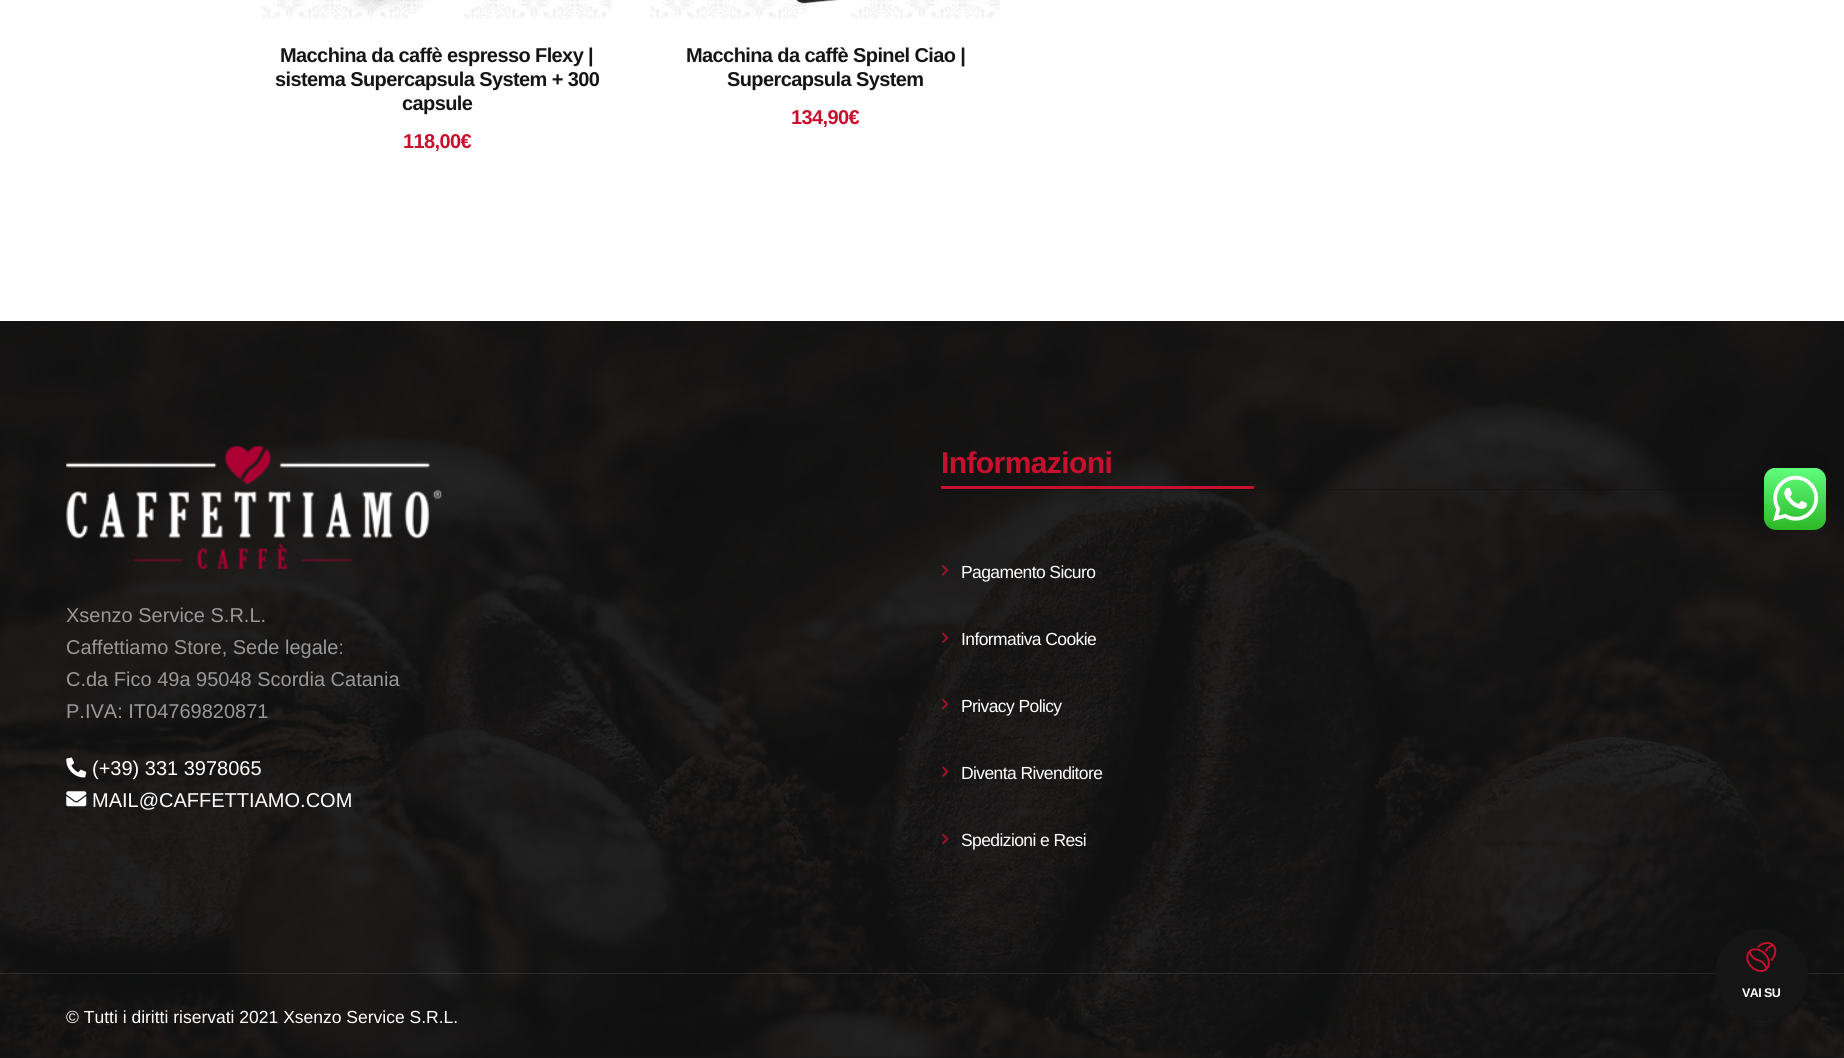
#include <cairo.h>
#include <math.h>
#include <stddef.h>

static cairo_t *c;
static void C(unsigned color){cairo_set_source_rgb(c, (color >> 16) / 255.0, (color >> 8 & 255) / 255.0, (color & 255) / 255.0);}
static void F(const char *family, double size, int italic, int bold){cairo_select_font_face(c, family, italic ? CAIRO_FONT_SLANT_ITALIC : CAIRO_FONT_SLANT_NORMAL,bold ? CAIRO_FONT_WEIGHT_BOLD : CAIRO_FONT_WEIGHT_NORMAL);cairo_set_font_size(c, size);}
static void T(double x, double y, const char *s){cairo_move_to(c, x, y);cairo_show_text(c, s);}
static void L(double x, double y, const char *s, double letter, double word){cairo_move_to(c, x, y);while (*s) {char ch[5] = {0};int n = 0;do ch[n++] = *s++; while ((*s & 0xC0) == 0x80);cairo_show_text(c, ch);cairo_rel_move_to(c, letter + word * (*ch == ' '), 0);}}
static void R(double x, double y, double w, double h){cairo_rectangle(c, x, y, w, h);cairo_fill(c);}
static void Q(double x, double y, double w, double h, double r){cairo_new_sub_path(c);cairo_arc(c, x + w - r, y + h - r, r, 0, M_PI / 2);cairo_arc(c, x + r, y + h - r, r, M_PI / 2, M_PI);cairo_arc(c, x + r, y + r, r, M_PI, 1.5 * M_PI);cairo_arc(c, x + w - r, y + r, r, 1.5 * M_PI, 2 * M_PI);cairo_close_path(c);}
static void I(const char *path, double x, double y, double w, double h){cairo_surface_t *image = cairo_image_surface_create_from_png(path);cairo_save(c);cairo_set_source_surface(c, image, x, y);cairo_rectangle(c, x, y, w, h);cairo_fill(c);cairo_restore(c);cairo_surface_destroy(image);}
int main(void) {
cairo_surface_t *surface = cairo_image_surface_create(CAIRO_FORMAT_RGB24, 1844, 1058);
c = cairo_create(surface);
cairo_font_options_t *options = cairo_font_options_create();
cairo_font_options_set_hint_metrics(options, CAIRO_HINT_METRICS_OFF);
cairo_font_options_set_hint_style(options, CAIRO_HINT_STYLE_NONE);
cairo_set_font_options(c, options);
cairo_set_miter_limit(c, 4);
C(0xffffff);
cairo_paint(c);
I("1.png",261,0,351,19);
F("Liberation Sans",20,0,1);
C(0x151515);
L(280,62,"Macchina da caffè espresso Flexy |",-.6,0);
L(275,86,"sistema Supercapsula System + 300",-.6,0);
L(402,110,"capsule",-.6,0);
C(0xc8102e);
L(403,148,"118,00€",-.6,0);
I("2.png",650,0,350,19);
C(0x151515);
L(686,62,"Macchina da caffè Spinel Ciao |",-.6,0);
L(727,86,"Supercapsula System",-.6,0);
C(0xc8102e);
L(791,124,"134,90€",-.6,0);
C(0x151515);
R(0,321,1844,737);
I("3.png",0,321,1844,737);
I("4.png",66,446,376,123);
F("Liberation Sans",20,0,0);
C(0x999898);
T(66,622,"Xsenzo Service S.R.L.");
T(66,654,"Caffettiamo Store, Sede legale:");
T(66,686,"C.da Fico 49a 95048 Scordia Catania");
T(66,718,"P.IVA: IT04769820871");
I("5.png",66,757,21,21);
C(0xffffff);
T(92,775,"(+39) 331 3978065");
I("6.png",66,791,21,16);
T(92,807,"MAIL@CAFFETTIAMO.COM");
cairo_set_source_rgba(c,0,0,0,0.2);
R(941,489,823,1);
F("Liberation Sans",30,0,1);
C(0xc8102e);
L(941,473,"Informazioni",-.6,0);
R(941,486,313,3);
I("7.png",942,565,7,11);
F("Liberation Sans",17.5,0,0);
C(0xffffff);
L(961,578,"Pagamento Sicuro",-.6,0);
I("8.png",942,632,7,11);
L(961,645,"Informativa Cookie",-.6,0);
I("9.png",942,698,7,12);
L(961,712,"Privacy Policy",-.6,0);
I("10.png",942,766,7,11);
L(961,779,"Diventa Rivenditore",-.6,0);
I("11.png",942,833,7,12);
L(961,846,"Spedizioni e Resi",-.6,0);
cairo_set_source_rgba(c,1,1,1,0.1);
R(0,973,1844,1);
C(0xffffff);
T(66,1023,"© Tutti i diritti riservati 2021 Xsenzo Service S.R.L.");
I("12.png",1764,468,62,62);
C(0x151515);
Q(1715,929,93,92,46);
cairo_fill(c);
I("13.png",1746,942,31,30);
F("Liberation Sans",12.5,0,1);
C(0xffffff);
L(1742,997,"VAI SU",-.6,0);
cairo_surface_write_to_png(surface, "o.png");
cairo_font_options_destroy(options);
cairo_destroy(c);
cairo_surface_destroy(surface);
return 0;
}
